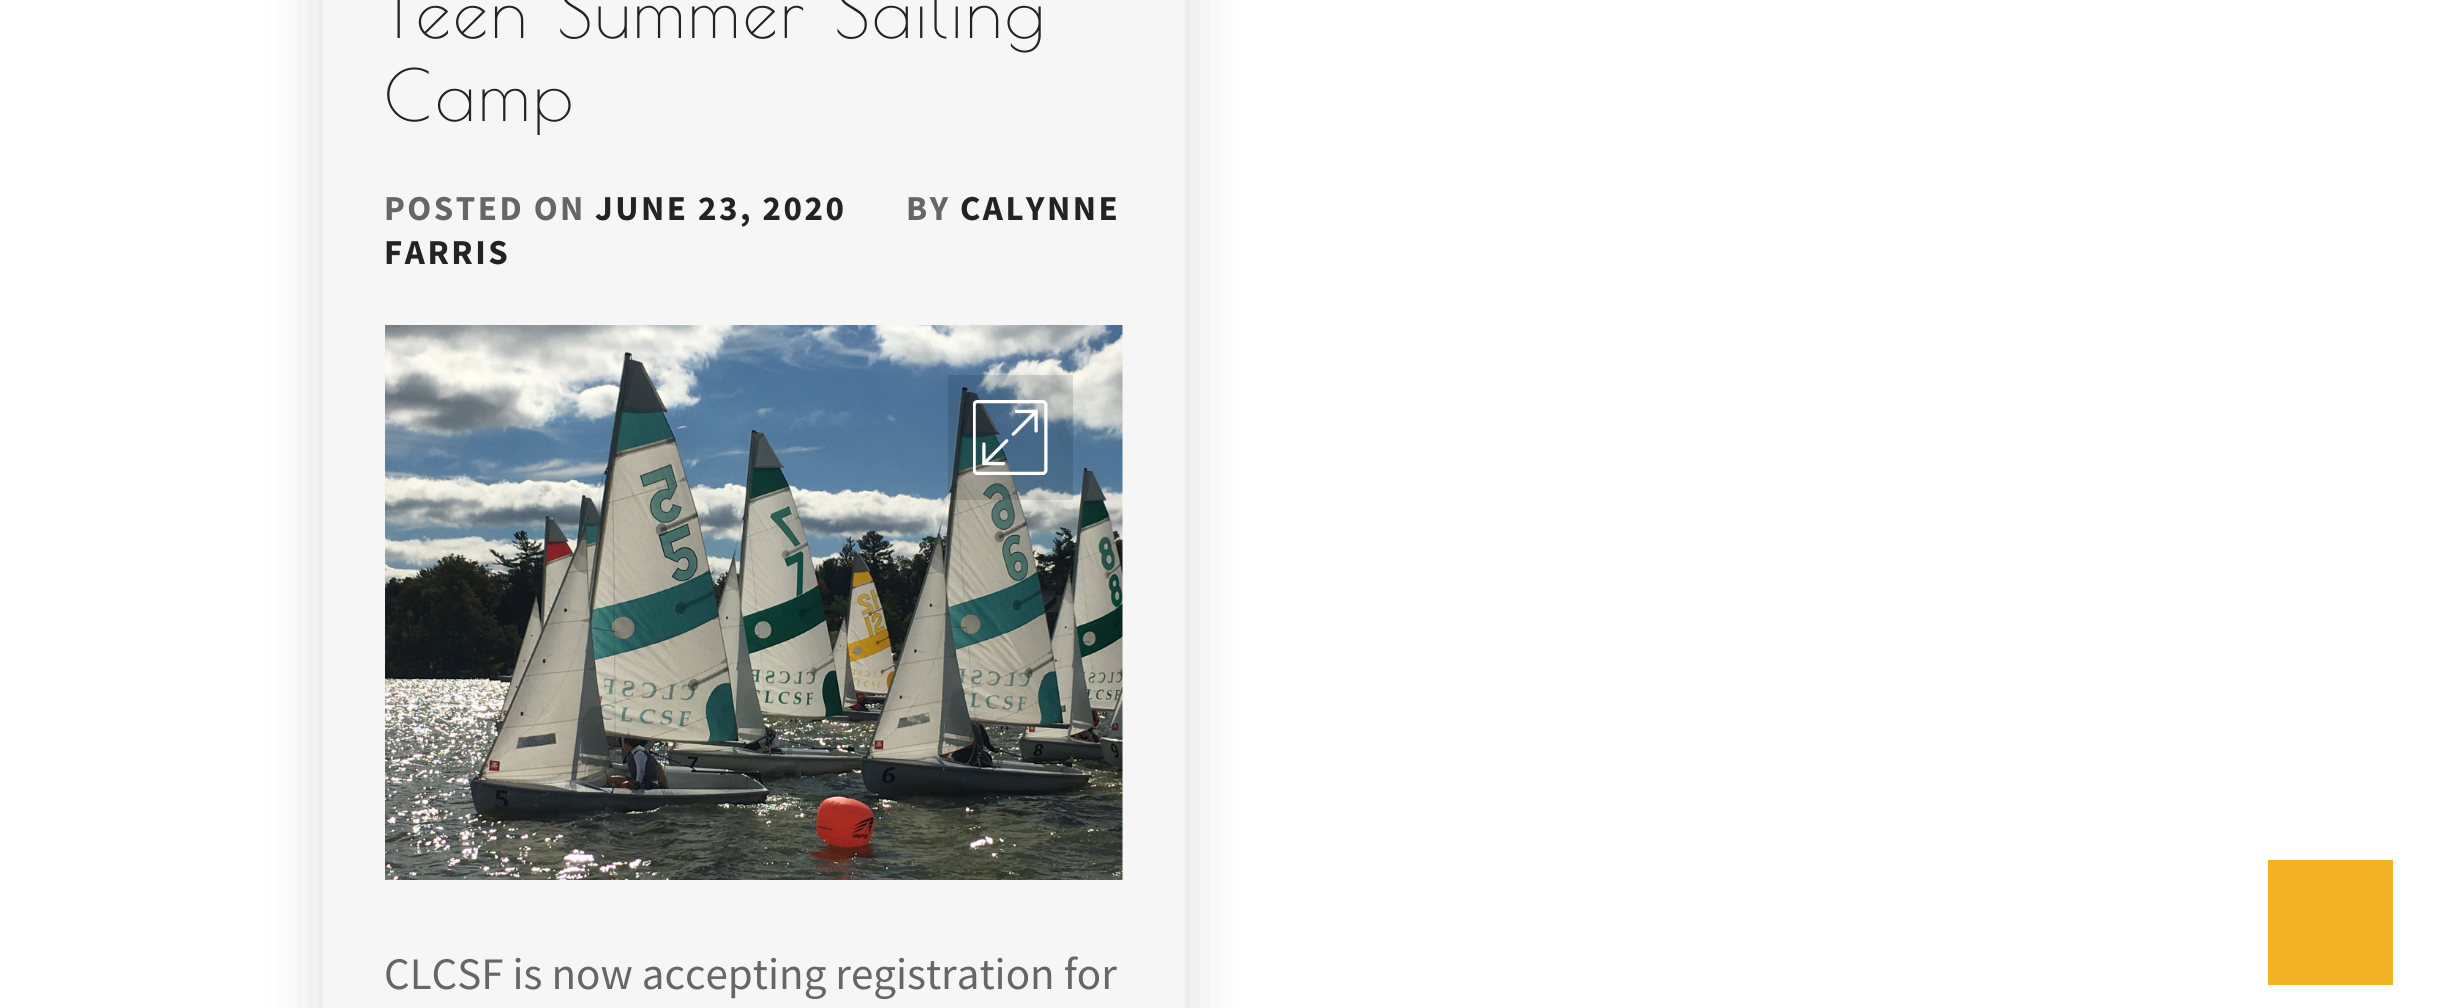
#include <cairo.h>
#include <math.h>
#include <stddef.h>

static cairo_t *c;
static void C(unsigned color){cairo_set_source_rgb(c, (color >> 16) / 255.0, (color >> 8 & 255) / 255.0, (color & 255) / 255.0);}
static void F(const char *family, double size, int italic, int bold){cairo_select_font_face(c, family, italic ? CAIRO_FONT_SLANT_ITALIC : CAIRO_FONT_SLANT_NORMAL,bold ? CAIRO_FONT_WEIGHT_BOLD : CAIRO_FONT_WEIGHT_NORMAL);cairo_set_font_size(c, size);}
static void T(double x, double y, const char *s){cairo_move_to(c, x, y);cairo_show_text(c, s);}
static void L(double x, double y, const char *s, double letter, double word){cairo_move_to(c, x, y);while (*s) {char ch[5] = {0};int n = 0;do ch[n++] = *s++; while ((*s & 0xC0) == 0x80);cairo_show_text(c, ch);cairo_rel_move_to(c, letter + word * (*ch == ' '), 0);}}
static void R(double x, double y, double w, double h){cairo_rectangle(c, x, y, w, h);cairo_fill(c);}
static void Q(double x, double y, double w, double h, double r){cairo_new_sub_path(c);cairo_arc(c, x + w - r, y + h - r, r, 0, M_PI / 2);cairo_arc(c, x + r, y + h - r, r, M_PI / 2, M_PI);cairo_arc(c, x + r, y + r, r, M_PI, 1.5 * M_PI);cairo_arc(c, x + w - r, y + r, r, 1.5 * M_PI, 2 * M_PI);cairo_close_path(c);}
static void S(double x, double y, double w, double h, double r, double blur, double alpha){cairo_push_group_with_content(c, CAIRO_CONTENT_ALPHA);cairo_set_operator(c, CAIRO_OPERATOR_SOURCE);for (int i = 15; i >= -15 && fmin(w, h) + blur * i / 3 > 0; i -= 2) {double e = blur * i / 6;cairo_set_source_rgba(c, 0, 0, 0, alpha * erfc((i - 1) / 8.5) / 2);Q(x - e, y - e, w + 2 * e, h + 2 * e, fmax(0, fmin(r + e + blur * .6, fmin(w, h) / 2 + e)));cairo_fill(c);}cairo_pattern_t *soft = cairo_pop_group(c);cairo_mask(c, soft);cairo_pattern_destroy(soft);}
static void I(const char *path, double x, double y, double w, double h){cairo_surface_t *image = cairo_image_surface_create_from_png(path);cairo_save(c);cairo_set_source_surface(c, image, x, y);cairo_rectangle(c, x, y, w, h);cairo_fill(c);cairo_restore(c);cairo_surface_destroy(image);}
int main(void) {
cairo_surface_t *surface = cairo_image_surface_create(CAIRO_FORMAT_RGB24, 2441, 1008);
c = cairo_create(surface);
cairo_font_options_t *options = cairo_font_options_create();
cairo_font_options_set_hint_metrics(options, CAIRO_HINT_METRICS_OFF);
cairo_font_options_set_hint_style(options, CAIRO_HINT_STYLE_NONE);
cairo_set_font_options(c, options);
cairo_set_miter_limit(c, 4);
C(0xffffff);
cairo_paint(c);
C(0x000000);
S(323,-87,862,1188,0,31,.15);
C(0xf6f6f6);
R(323,0,862,1008);
F("Poiret One",70,0,0);
C(0x232323);
L(384,38,"Teen Summer Sailing",2.75,0);
L(384,121,"Camp",2.75,0);
F("Source Sans Pro",35,0,1);
C(0x666666);
L(384,220,"POSTED ON",2.5,0);
C(0x232323);
L(595,220,"JUNE 23, 2020",2.5,0);
C(0x666666);
L(906,220,"BY",2.5,0);
C(0x232323);
L(960,220,"CALYNNE",2.5,0);
L(384,264,"FARRIS",2.5,0);
I("1.png",385,325,738,555);
cairo_set_source_rgba(c,0,0,0,0.12);
R(948,375,125,125);
I("2.png",973,400,75,75);
F("Source Sans Pro",45,0,0);
C(0x666666);
T(384,989,"CLCSF is now accepting registration for");
C(0xf2b125);
R(2268,860,125,125);
cairo_surface_write_to_png(surface, "o.png");
cairo_font_options_destroy(options);
cairo_destroy(c);
cairo_surface_destroy(surface);
return 0;
}
